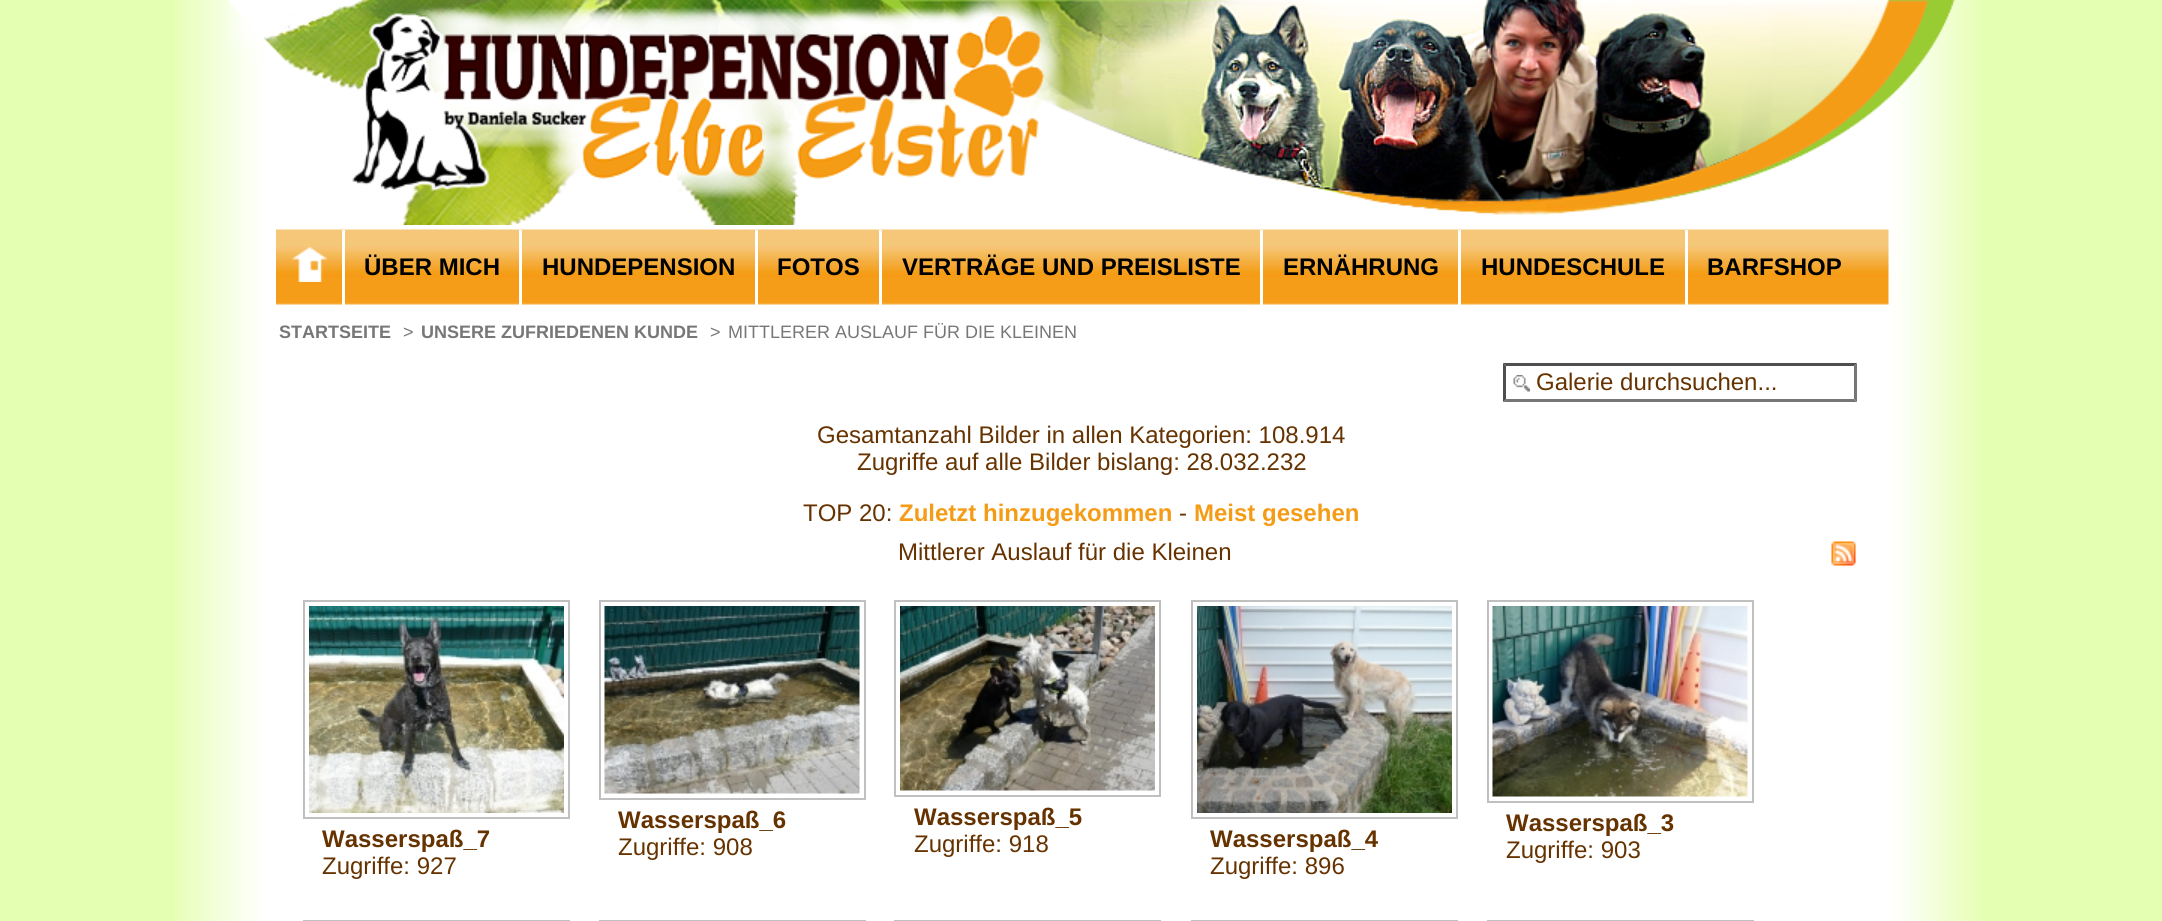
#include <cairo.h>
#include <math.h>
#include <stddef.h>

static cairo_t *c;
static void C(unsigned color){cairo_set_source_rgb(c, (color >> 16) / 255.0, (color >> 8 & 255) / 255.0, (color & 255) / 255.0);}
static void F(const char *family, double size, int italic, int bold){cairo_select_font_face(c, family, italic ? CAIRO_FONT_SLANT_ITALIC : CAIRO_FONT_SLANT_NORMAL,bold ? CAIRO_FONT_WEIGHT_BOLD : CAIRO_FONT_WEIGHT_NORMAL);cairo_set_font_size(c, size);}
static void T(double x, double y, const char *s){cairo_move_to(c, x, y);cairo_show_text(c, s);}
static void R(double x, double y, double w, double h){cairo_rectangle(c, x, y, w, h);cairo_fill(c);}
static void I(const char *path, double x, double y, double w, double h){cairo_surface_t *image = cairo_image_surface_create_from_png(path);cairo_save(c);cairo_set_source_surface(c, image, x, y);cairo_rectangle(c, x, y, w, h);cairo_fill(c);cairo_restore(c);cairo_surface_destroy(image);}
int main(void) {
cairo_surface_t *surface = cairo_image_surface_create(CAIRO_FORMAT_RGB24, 2162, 921);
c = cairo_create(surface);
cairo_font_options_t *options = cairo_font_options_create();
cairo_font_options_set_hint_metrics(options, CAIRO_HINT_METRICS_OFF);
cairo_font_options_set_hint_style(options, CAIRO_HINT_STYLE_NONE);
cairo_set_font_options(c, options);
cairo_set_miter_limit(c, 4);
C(0xe4ffb2);
cairo_paint(c);
I("1.png",174,0,1807,921);
I("2.png",226,0,1729,225);
I("3.png",352,0,712,200);
I("4.png",276,229,1613,76);
I("5.png",291,247,36,35);
C(0xffffff);
R(342,230,3,75);
F("Liberation Sans",24,0,1);
C(0x000000);
T(364,275,"ÜBER MICH");
C(0xffffff);
R(519,230,3,75);
C(0x000000);
T(542,275,"HUNDEPENSION");
C(0xffffff);
R(755,230,3,75);
C(0x000000);
T(777,275,"FOTOS");
C(0xffffff);
R(879,230,3,75);
C(0x000000);
T(902,275,"VERTRÄGE UND PREISLISTE");
C(0xffffff);
R(1260,230,3,75);
C(0x000000);
T(1283,275,"ERNÄHRUNG");
C(0xffffff);
R(1458,230,3,75);
C(0x000000);
T(1481,275,"HUNDESCHULE");
C(0xffffff);
R(1685,230,3,75);
C(0x000000);
T(1707,275,"BARFSHOP");
F("Liberation Sans",18,0,1);
C(0x777777);
T(279,338,"STARTSEITE");
F("Liberation Sans",18,0,0);
T(403,338,">");
F("Liberation Sans",18,0,1);
T(421,338,"UNSERE ZUFRIEDENEN KUNDE");
F("Liberation Sans",18,0,0);
T(710,338,">");
T(728,338,"MITTLERER AUSLAUF FÜR DIE KLEINEN");
I("6.png",1513,375,17,17);
C(0x4f4f4f);
cairo_new_path(c);
cairo_move_to(c,1503,363);
cairo_line_to(c,1857,363);
cairo_line_to(c,1854,366);
cairo_line_to(c,1506,366);
cairo_close_path(c);
cairo_fill(c);
C(0x767676);
cairo_new_path(c);
cairo_move_to(c,1857,363);
cairo_line_to(c,1857,402);
cairo_line_to(c,1854,399);
cairo_line_to(c,1854,366);
cairo_close_path(c);
cairo_fill(c);
cairo_new_path(c);
cairo_move_to(c,1857,402);
cairo_line_to(c,1503,402);
cairo_line_to(c,1506,399);
cairo_line_to(c,1854,399);
cairo_close_path(c);
cairo_fill(c);
C(0x4f4f4f);
cairo_new_path(c);
cairo_move_to(c,1503,402);
cairo_line_to(c,1503,363);
cairo_line_to(c,1506,366);
cairo_line_to(c,1506,399);
cairo_close_path(c);
cairo_fill(c);
F("Liberation Sans",24,0,0);
C(0x663300);
T(1536,390,"Galerie durchsuchen...");
T(817,443,"Gesamtanzahl Bilder in allen Kategorien: 108.914");
T(857,470,"Zugriffe auf alle Bilder bislang: 28.032.232");
T(803,521,"TOP 20:");
F("Liberation Sans",24,0,1);
C(0xf59c17);
T(899,521,"Zuletzt hinzugekommen");
F("Liberation Sans",24,0,0);
C(0x663300);
T(1179,521,"-");
F("Liberation Sans",24,0,1);
C(0xf59c17);
T(1194,521,"Meist gesehen");
F("Liberation Sans",24,0,0);
C(0x663300);
T(898,560,"Mittlerer Auslauf für die Kleinen");
I("7.png",1831,541,25,25);
cairo_rectangle(c,304,601,265,217);
C(0xc0c0c0);
cairo_stroke(c);
I("8.png",309,606,255,207);
F("Liberation Sans",24,0,1);
C(0x663300);
T(322,847,"Wasserspaß_7");
F("Liberation Sans",24,0,0);
T(322,874,"Zugriffe: 927");
cairo_rectangle(c,600,601,265,198);
C(0xc0c0c0);
cairo_stroke(c);
I("9.png",604,606,256,188);
F("Liberation Sans",24,0,1);
C(0x663300);
T(618,828,"Wasserspaß_6");
F("Liberation Sans",24,0,0);
T(618,855,"Zugriffe: 908");
cairo_rectangle(c,895,601,265,195);
C(0xc0c0c0);
cairo_stroke(c);
I("10.png",900,606,255,185);
F("Liberation Sans",24,0,1);
C(0x663300);
T(914,825,"Wasserspaß_5");
F("Liberation Sans",24,0,0);
T(914,852,"Zugriffe: 918");
cairo_rectangle(c,1192,601,265,217);
C(0xc0c0c0);
cairo_stroke(c);
I("11.png",1197,606,255,207);
F("Liberation Sans",24,0,1);
C(0x663300);
T(1210,847,"Wasserspaß_4");
F("Liberation Sans",24,0,0);
T(1210,874,"Zugriffe: 896");
cairo_rectangle(c,1488,601,265,201);
C(0xc0c0c0);
cairo_stroke(c);
I("12.png",1492,606,256,191);
F("Liberation Sans",24,0,1);
C(0x663300);
T(1506,831,"Wasserspaß_3");
F("Liberation Sans",24,0,0);
T(1506,858,"Zugriffe: 903");
cairo_rectangle(c,304,921,265,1);
C(0xc0c0c0);
cairo_stroke(c);
cairo_rectangle(c,600,921,265,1);
cairo_stroke(c);
cairo_rectangle(c,895,921,265,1);
cairo_stroke(c);
cairo_rectangle(c,1192,921,265,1);
cairo_stroke(c);
cairo_rectangle(c,1488,921,265,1);
cairo_stroke(c);
cairo_surface_write_to_png(surface, "o.png");
cairo_font_options_destroy(options);
cairo_destroy(c);
cairo_surface_destroy(surface);
return 0;
}
